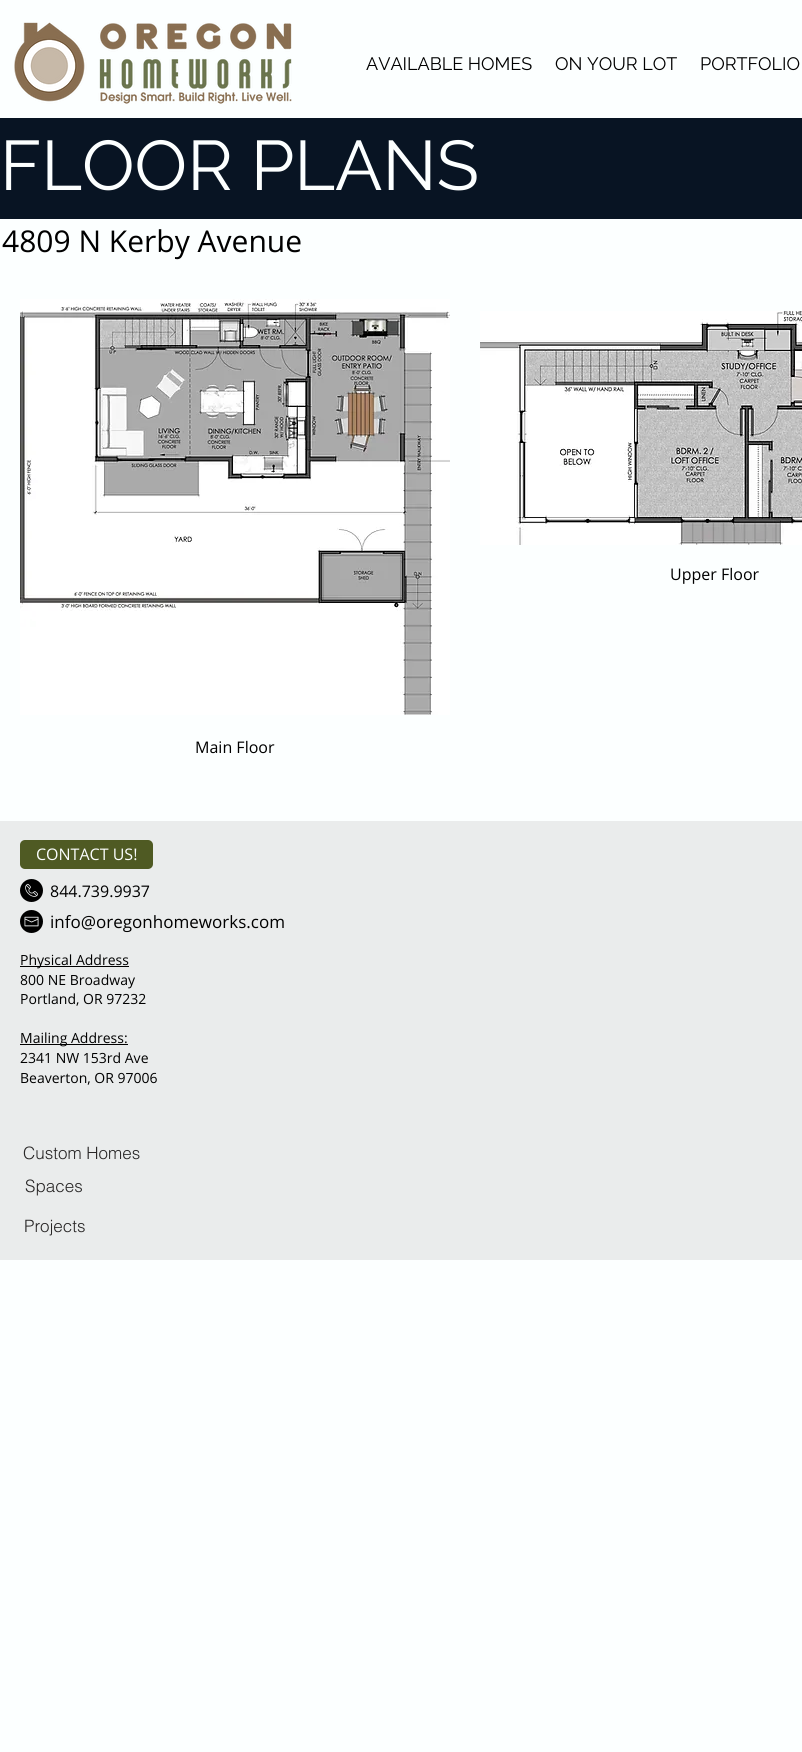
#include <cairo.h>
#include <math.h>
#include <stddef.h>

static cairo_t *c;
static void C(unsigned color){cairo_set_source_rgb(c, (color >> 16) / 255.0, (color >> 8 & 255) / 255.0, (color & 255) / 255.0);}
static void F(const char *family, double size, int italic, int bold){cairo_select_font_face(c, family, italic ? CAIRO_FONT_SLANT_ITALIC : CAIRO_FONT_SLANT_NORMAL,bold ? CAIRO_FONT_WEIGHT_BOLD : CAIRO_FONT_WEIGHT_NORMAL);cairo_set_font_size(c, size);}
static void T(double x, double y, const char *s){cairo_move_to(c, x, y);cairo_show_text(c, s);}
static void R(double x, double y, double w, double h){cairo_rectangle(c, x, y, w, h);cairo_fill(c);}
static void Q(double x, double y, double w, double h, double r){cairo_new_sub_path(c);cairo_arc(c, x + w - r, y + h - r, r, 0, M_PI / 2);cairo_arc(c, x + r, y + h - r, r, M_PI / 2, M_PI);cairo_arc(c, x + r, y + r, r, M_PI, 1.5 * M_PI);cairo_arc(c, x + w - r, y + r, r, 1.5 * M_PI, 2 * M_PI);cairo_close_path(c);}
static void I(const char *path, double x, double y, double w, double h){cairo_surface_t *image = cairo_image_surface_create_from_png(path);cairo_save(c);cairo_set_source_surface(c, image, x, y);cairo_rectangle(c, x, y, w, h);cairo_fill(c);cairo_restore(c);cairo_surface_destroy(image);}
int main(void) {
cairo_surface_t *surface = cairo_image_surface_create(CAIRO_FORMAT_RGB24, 802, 1752);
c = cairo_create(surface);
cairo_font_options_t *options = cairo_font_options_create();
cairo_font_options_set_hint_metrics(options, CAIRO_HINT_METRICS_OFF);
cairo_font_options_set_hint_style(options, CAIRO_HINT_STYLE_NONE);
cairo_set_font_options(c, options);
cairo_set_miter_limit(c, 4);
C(0xfcffff);
cairo_paint(c);
I("1.png",14,22,278,82);
F("Raleway",18,0,0);
C(0x000000);
T(366,70,"AVAILABLE HOMES");
T(555,70,"ON YOUR LOT");
T(700,70,"PORTFOLIO");
C(0x081423);
R(0,118,802,101);
F("Raleway",70,0,0);
C(0xfcffff);
T(0,190,"FLOOR PLANS");
F("Open Sans",30,0,0);
C(0x000000);
T(2,252,"4809 N Kerby Avenue");
I("2.png",20,299,430,416);
I("3.png",480,311,322,234);
F("Open Sans",16,0,0);
T(670,580,"Upper Floor");
T(195,753,"Main Floor");
C(0xeaecec);
R(0,821,802,439);
C(0x4f5a23);
Q(20,840,133,29,5);
cairo_fill(c);
C(0xfcffff);
T(36,860,"CONTACT US!");
I("4.png",20,879,23,23);
C(0x000000);
T(50,897,"844.739.9937");
I("5.png",20,910,23,23);
F("Open Sans",17,0,0);
T(50,928,"info@oregonhomeworks.com");
R(20,966,109,1);
F("Open Sans",14,0,0);
T(20,965,"Physical Address");
T(20,985,"800 NE Broadway");
T(20,1004,"Portland, OR 97232");
R(20,1044,108,1);
T(20,1043,"Mailing Address:");
T(20,1063,"2341 NW 153rd Ave");
T(20,1083,"Beaverton, OR 97006");
F("helvetica Light",17,0,0);
C(0x282626);
T(23,1159,"Custom Homes");
T(25,1192,"Spaces");
T(24,1232,"Projects");
cairo_surface_write_to_png(surface, "o.png");
cairo_font_options_destroy(options);
cairo_destroy(c);
cairo_surface_destroy(surface);
return 0;
}
